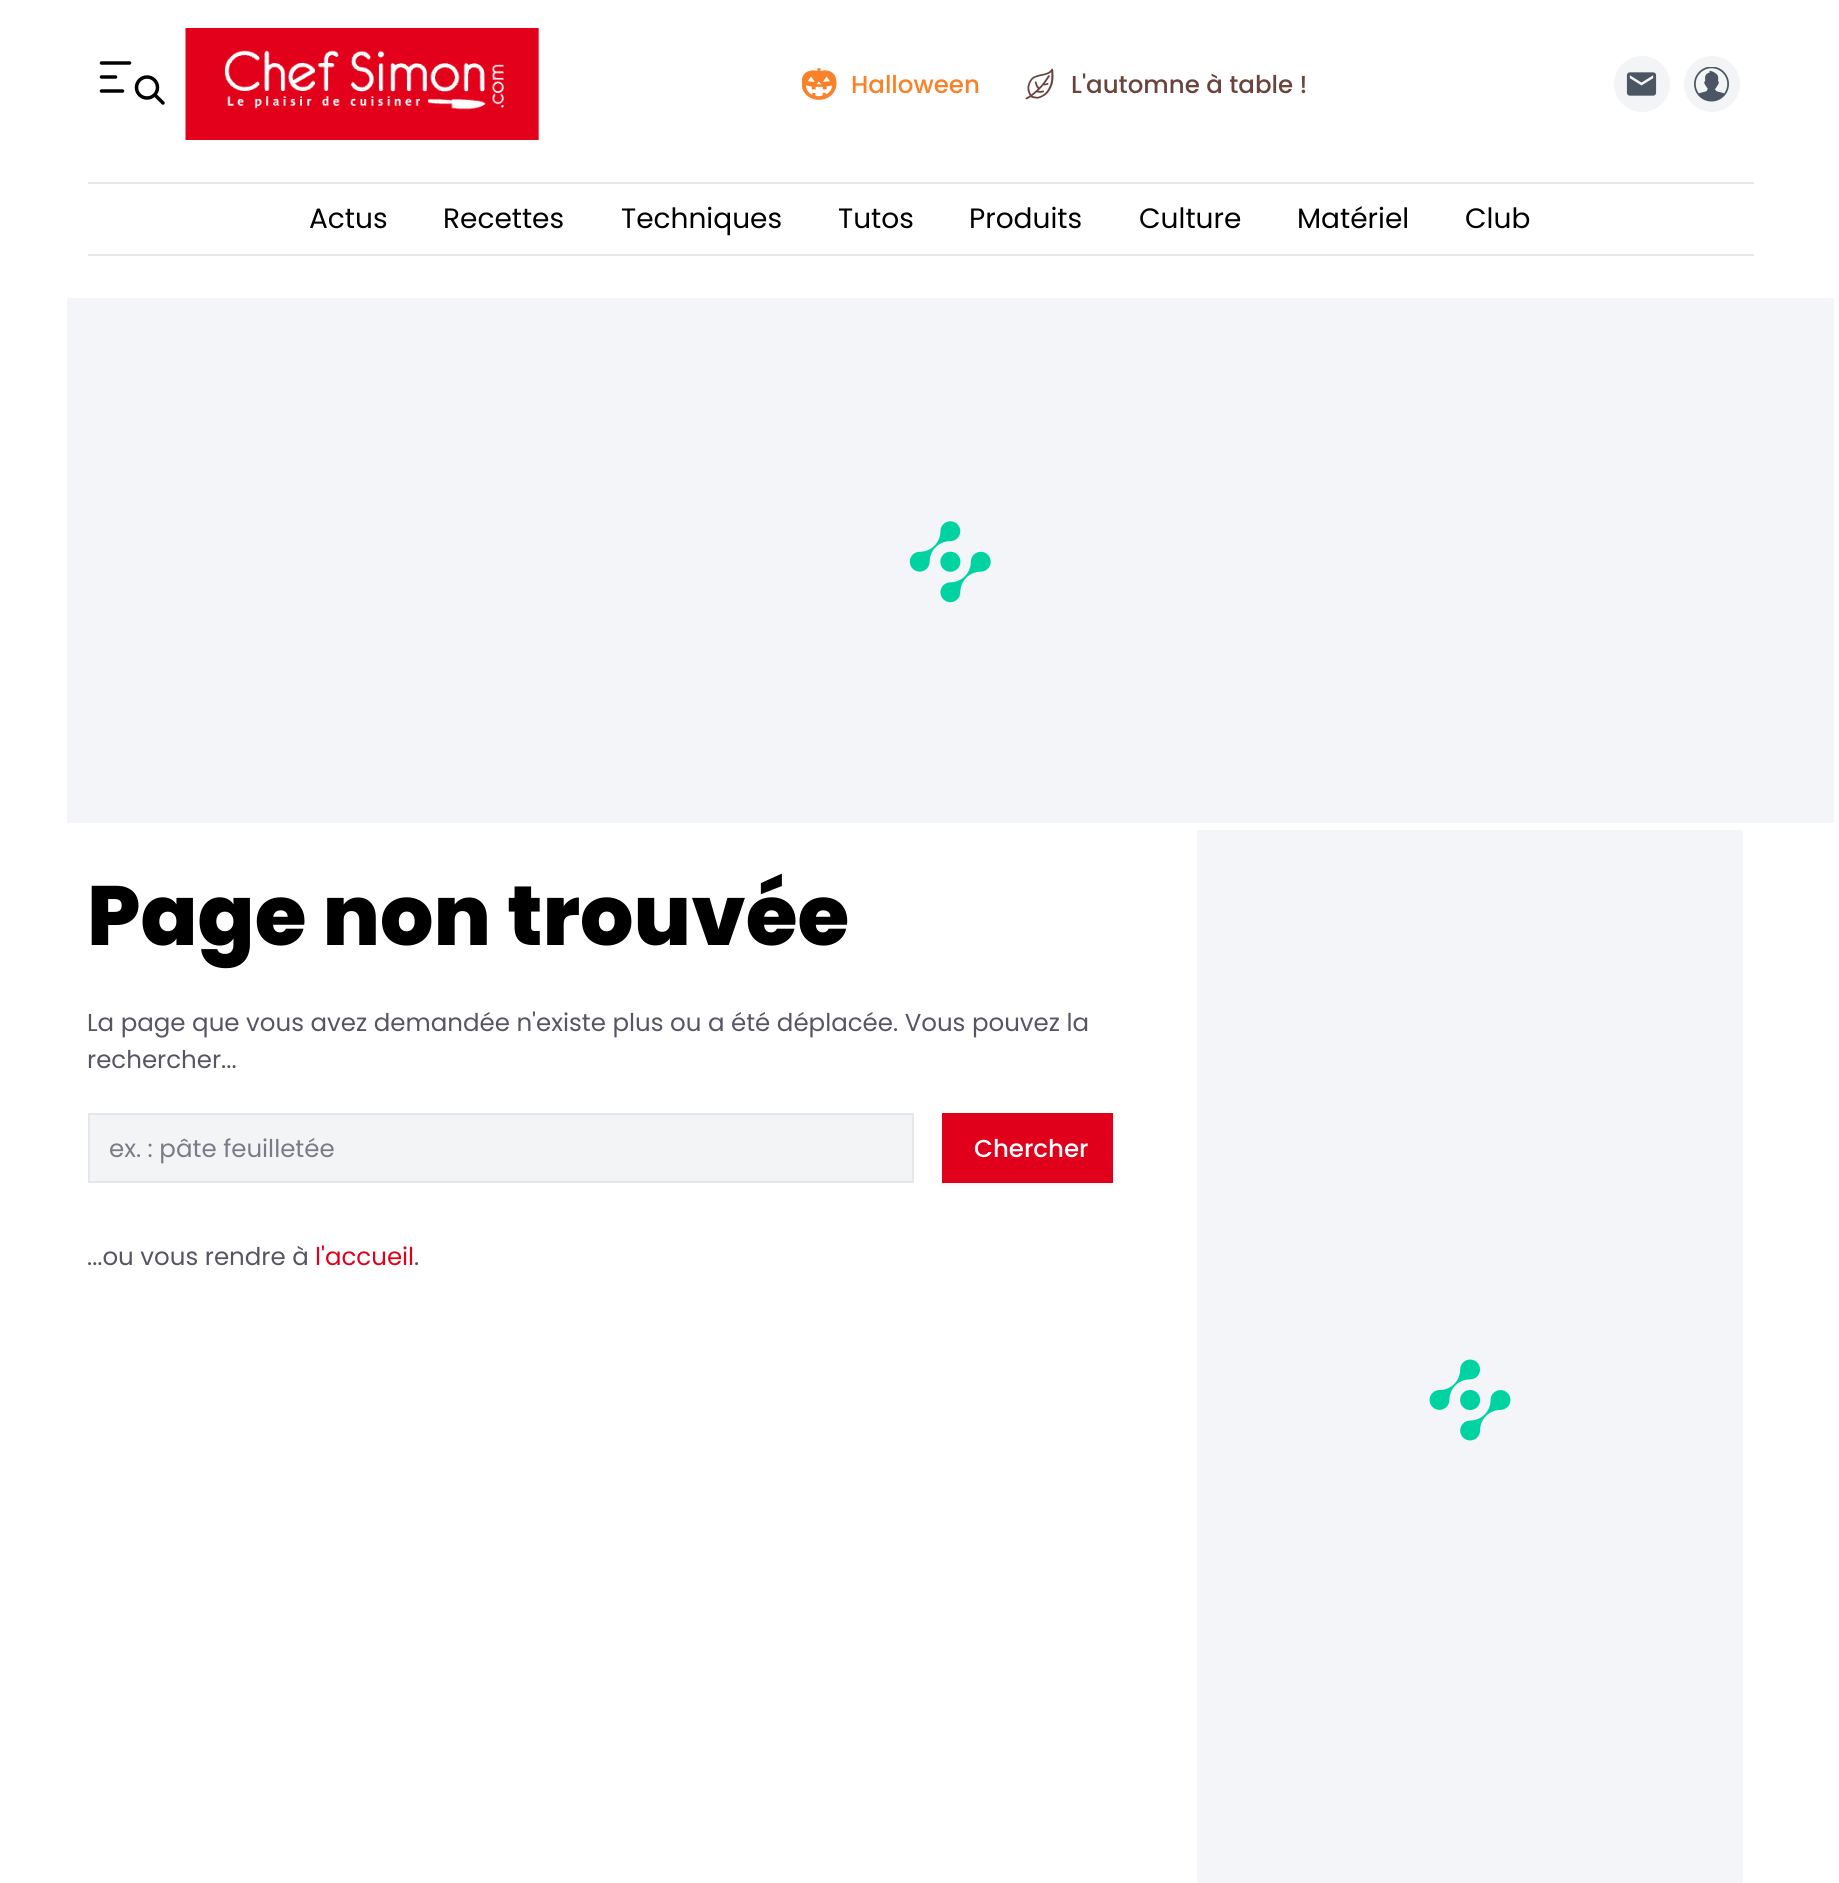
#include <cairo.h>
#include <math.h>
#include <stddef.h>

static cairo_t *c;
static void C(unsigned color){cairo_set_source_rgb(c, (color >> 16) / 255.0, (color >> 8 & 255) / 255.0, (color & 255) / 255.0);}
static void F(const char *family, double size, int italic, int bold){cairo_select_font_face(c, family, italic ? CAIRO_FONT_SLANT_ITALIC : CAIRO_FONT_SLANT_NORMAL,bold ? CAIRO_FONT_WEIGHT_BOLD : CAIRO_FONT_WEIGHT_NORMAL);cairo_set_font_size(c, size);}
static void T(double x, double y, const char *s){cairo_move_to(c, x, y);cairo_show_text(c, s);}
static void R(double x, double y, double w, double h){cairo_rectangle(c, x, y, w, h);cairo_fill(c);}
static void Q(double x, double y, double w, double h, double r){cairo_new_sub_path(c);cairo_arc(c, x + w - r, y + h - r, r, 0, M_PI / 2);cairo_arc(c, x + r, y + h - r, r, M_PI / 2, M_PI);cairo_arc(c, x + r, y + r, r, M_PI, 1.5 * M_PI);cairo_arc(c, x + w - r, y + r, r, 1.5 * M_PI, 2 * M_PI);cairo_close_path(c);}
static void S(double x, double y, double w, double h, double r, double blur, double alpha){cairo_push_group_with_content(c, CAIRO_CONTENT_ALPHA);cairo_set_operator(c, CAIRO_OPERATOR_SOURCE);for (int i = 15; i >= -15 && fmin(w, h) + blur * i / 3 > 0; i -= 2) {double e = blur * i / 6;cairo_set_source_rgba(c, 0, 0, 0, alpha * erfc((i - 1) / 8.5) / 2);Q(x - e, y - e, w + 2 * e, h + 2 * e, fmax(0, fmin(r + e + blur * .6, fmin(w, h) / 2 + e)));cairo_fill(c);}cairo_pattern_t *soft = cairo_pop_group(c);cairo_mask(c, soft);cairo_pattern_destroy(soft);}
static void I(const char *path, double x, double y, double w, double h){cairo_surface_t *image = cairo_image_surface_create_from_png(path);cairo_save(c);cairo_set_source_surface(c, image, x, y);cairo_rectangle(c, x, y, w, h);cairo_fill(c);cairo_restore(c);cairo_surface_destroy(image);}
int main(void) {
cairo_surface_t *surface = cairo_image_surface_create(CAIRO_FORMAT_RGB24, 1839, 1883);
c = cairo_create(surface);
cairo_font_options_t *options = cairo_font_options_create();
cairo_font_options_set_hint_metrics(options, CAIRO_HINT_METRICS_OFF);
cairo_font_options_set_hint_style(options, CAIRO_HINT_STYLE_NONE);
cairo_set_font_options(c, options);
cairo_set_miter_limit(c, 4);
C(0xffffff);
cairo_paint(c);
cairo_new_path(c);
cairo_move_to(c,101.5,63);
cairo_line_to(c,129.5,63);
cairo_move_to(c,101.5,77);
cairo_line_to(c,115.5,77);
cairo_move_to(c,101.5,91);
cairo_line_to(c,122.5,91);
C(0x000000);
cairo_set_line_width(c,3.5);
cairo_set_line_cap(c,CAIRO_LINE_CAP_ROUND);
cairo_stroke(c);
cairo_arc(c,147,87.5,10.5,0,2 * M_PI);
cairo_set_line_cap(c,CAIRO_LINE_CAP_BUTT);
cairo_stroke(c);
cairo_new_path(c);
cairo_move_to(c,156,96);
cairo_line_to(c,163,103);
cairo_set_line_cap(c,CAIRO_LINE_CAP_ROUND);
cairo_stroke(c);
I("1.png",185,28,354,112);
I("2.png",802,68,35,32);
F("Poppins Medium",24.5,0,0);
C(0xf98128);
T(851,93,"Halloween");
I("3.png",1025,68,29,32);
C(0x6a443e);
T(1071,93,"L'automne à table !");
C(0xf3f4f6);
cairo_new_path(c);
cairo_arc(c,1642,84,28,0,2 * M_PI);
cairo_fill(c);
I("4.png",1626,72,31,24);
cairo_arc(c,1712,84,28,0,2 * M_PI);
cairo_fill(c);
I("5.png",1694,67,35,35);
C(0xe5e7eb);
R(88,182,1666,2);
R(88,254,1666,2);
F("Poppins",28,0,0);
C(0x000000);
T(309,228,"Actus");
T(443,228,"Recettes");
T(621,228,"Techniques");
T(838,228,"Tutos");
T(969,228,"Produits");
T(1139,228,"Culture");
T(1297,228,"Matériel");
T(1465,228,"Club");
C(0xf4f5f9);
R(67,298,1767,525);
I("6.png",909,521,82,82);
F("Poppins ExtraBold",84,0,0);
C(0x000000);
T(87,945,"Page non trouvée");
F("Poppins",24.5,0,0);
C(0x565562);
T(87,1031,"La page que vous avez demandée n'existe plus ou a été déplacée. Vous pouvez la");
T(87,1068,"rechercher...");
C(0xf3f4f6);
cairo_rectangle(c,89,1114,824,68);
cairo_fill_preserve(c);
C(0xe5e7eb);
cairo_set_line_width(c,2);
cairo_set_line_cap(c,CAIRO_LINE_CAP_BUTT);
cairo_stroke(c);
C(0x7c7a86);
T(109,1157,"ex. : pâte feuilletée");
C(0x000000);
S(942,1115,171,70,0,2,.05);
C(0xe1001b);
R(942,1113,171,70);
F("Poppins Medium",24.5,0,0);
C(0xffffff);
T(974,1157,"Chercher");
F("Poppins",24.5,0,0);
C(0x565562);
T(87,1265,"...ou vous rendre à");
C(0xe1001b);
T(315,1265,"l'accueil");
C(0x565562);
T(414,1265,".");
C(0xf4f5f9);
R(1197,830,546,1053);
I("7.png",1429,1359,82,82);
cairo_surface_write_to_png(surface, "o.png");
cairo_font_options_destroy(options);
cairo_destroy(c);
cairo_surface_destroy(surface);
return 0;
}
